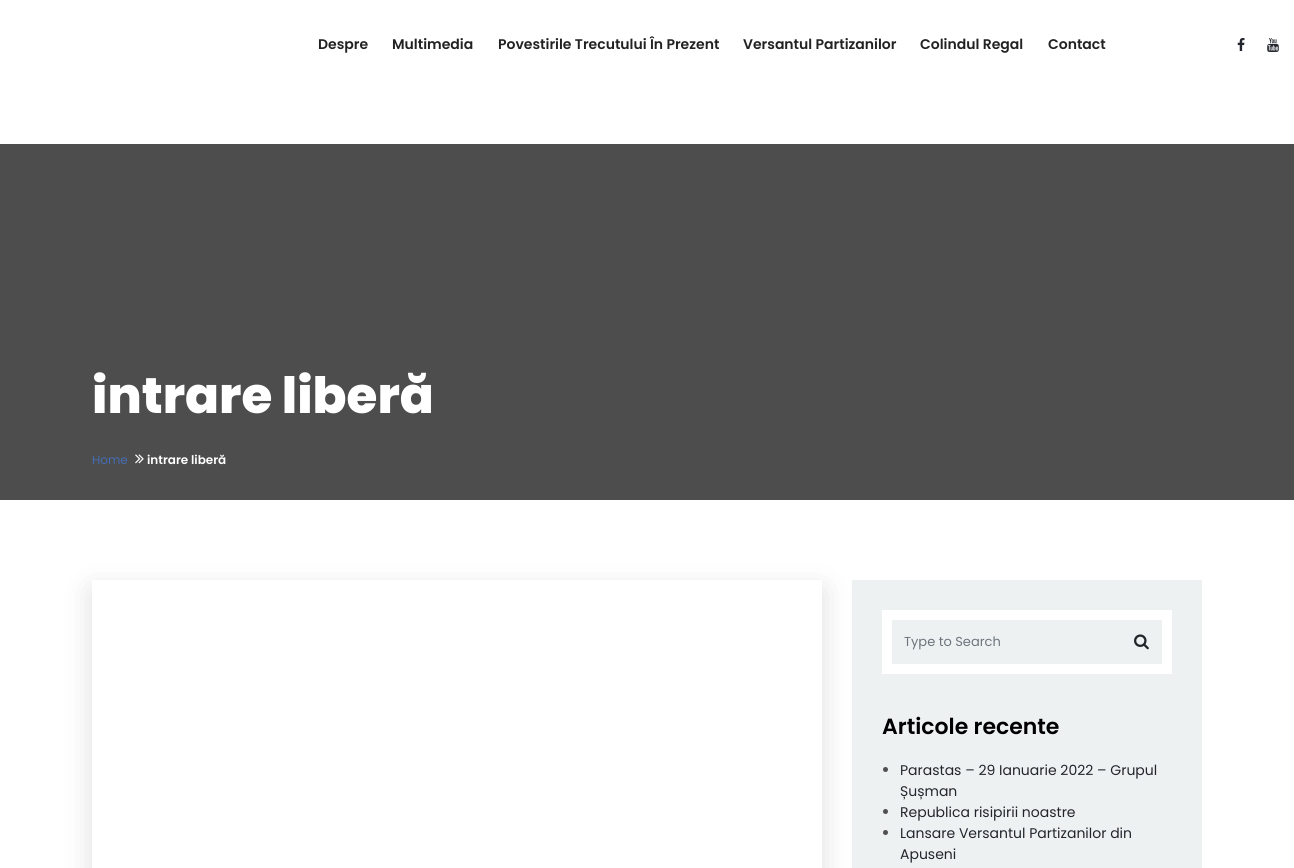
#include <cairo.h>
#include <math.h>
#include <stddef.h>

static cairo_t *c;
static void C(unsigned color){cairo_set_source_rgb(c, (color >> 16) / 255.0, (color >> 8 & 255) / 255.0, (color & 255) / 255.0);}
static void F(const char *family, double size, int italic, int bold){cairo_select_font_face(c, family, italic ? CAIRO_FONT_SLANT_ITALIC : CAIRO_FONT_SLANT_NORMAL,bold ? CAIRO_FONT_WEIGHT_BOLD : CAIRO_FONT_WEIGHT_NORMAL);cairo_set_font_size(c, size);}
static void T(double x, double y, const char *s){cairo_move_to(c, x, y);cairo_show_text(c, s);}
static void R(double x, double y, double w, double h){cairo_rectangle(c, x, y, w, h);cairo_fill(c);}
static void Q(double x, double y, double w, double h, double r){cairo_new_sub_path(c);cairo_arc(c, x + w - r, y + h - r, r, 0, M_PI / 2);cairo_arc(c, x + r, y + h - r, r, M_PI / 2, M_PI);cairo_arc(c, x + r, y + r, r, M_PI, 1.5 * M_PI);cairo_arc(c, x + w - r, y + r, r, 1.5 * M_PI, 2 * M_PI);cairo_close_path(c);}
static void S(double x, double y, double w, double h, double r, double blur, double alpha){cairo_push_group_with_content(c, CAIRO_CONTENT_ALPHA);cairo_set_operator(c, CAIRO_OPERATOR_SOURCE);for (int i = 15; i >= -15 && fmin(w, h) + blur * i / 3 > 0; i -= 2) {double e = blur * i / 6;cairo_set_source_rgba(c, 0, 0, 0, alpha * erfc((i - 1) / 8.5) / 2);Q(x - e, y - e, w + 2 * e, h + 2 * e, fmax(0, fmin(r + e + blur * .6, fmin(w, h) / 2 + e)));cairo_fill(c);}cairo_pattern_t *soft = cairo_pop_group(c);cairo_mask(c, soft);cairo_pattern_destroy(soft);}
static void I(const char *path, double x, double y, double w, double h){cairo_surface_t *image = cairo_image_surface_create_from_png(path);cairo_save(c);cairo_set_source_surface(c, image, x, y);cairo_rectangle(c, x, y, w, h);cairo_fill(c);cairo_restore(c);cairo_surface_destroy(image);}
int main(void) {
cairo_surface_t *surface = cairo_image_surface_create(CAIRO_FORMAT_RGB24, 1294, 868);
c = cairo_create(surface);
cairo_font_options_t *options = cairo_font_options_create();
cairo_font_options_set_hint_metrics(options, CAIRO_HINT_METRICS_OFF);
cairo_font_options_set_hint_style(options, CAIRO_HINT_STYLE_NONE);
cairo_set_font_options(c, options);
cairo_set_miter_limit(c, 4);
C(0xffffff);
cairo_paint(c);
F("Poppins SemiBold",14,0,0);
C(0x222222);
T(318,49,"Despre");
T(392,49,"Multimedia");
T(498,49,"Povestirile Trecutului În Prezent");
T(743,49,"Versantul Partizanilor");
T(920,49,"Colindul Regal");
T(1048,49,"Contact");
I("1.png",1237,38,8,13);
I("2.png",1267,38,12,14);
C(0x4d4d4d);
R(0,144,1294,356);
F("Poppins ExtraBold",50,0,0);
C(0xffffff);
T(92,413,"intrare liberă");
F("Poppins",12,0,0);
C(0x456cb3);
T(92,464,"Home");
I("3.png",135,454,9,10);
F("Poppins SemiBold",12,0,0);
C(0xffffff);
T(147,464,"intrare liberă");
cairo_save(c);
cairo_set_fill_rule(c,CAIRO_FILL_RULE_EVEN_ODD);
cairo_new_path(c);
cairo_move_to(c,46,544);
cairo_line_to(c,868,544);
cairo_line_to(c,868,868);
cairo_line_to(c,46,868);
cairo_close_path(c);
cairo_move_to(c,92,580);
cairo_line_to(c,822,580);
cairo_line_to(c,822,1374);
cairo_line_to(c,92,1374);
cairo_close_path(c);
cairo_clip(c);
C(0x323232);
S(92,590,730,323,0,15,.16);
cairo_restore(c);
C(0xeef1f2);
R(852,580,350,288);
C(0xffffff);
R(882,610,290,64);
C(0xeef1f2);
R(892,620,270,44);
I("4.png",1134,634,15,16);
F("Poppins",13,0,0);
C(0x6c757d);
T(904,646,"Type to Search");
F("Poppins SemiBold",22,0,0);
C(0x000000);
T(882,734,"Articole recente");
C(0x505050);
cairo_new_path(c);
cairo_arc(c,885.5,769.5,2.5,0,2 * M_PI);
cairo_fill(c);
F("Poppins",14,0,0);
C(0x23252d);
T(900,775,"Parastas – 29 Ianuarie 2022 – Grupul");
T(900,796,"Șușman");
C(0x505050);
cairo_new_path(c);
cairo_arc(c,885.5,811.5,2.5,0,2 * M_PI);
cairo_fill(c);
C(0x23252d);
T(900,817,"Republica risipirii noastre");
C(0x505050);
cairo_new_path(c);
cairo_arc(c,885.5,832.5,2.5,0,2 * M_PI);
cairo_fill(c);
C(0x23252d);
T(900,838,"Lansare Versantul Partizanilor din");
T(900,859,"Apuseni");
cairo_surface_write_to_png(surface, "o.png");
cairo_font_options_destroy(options);
cairo_destroy(c);
cairo_surface_destroy(surface);
return 0;
}
